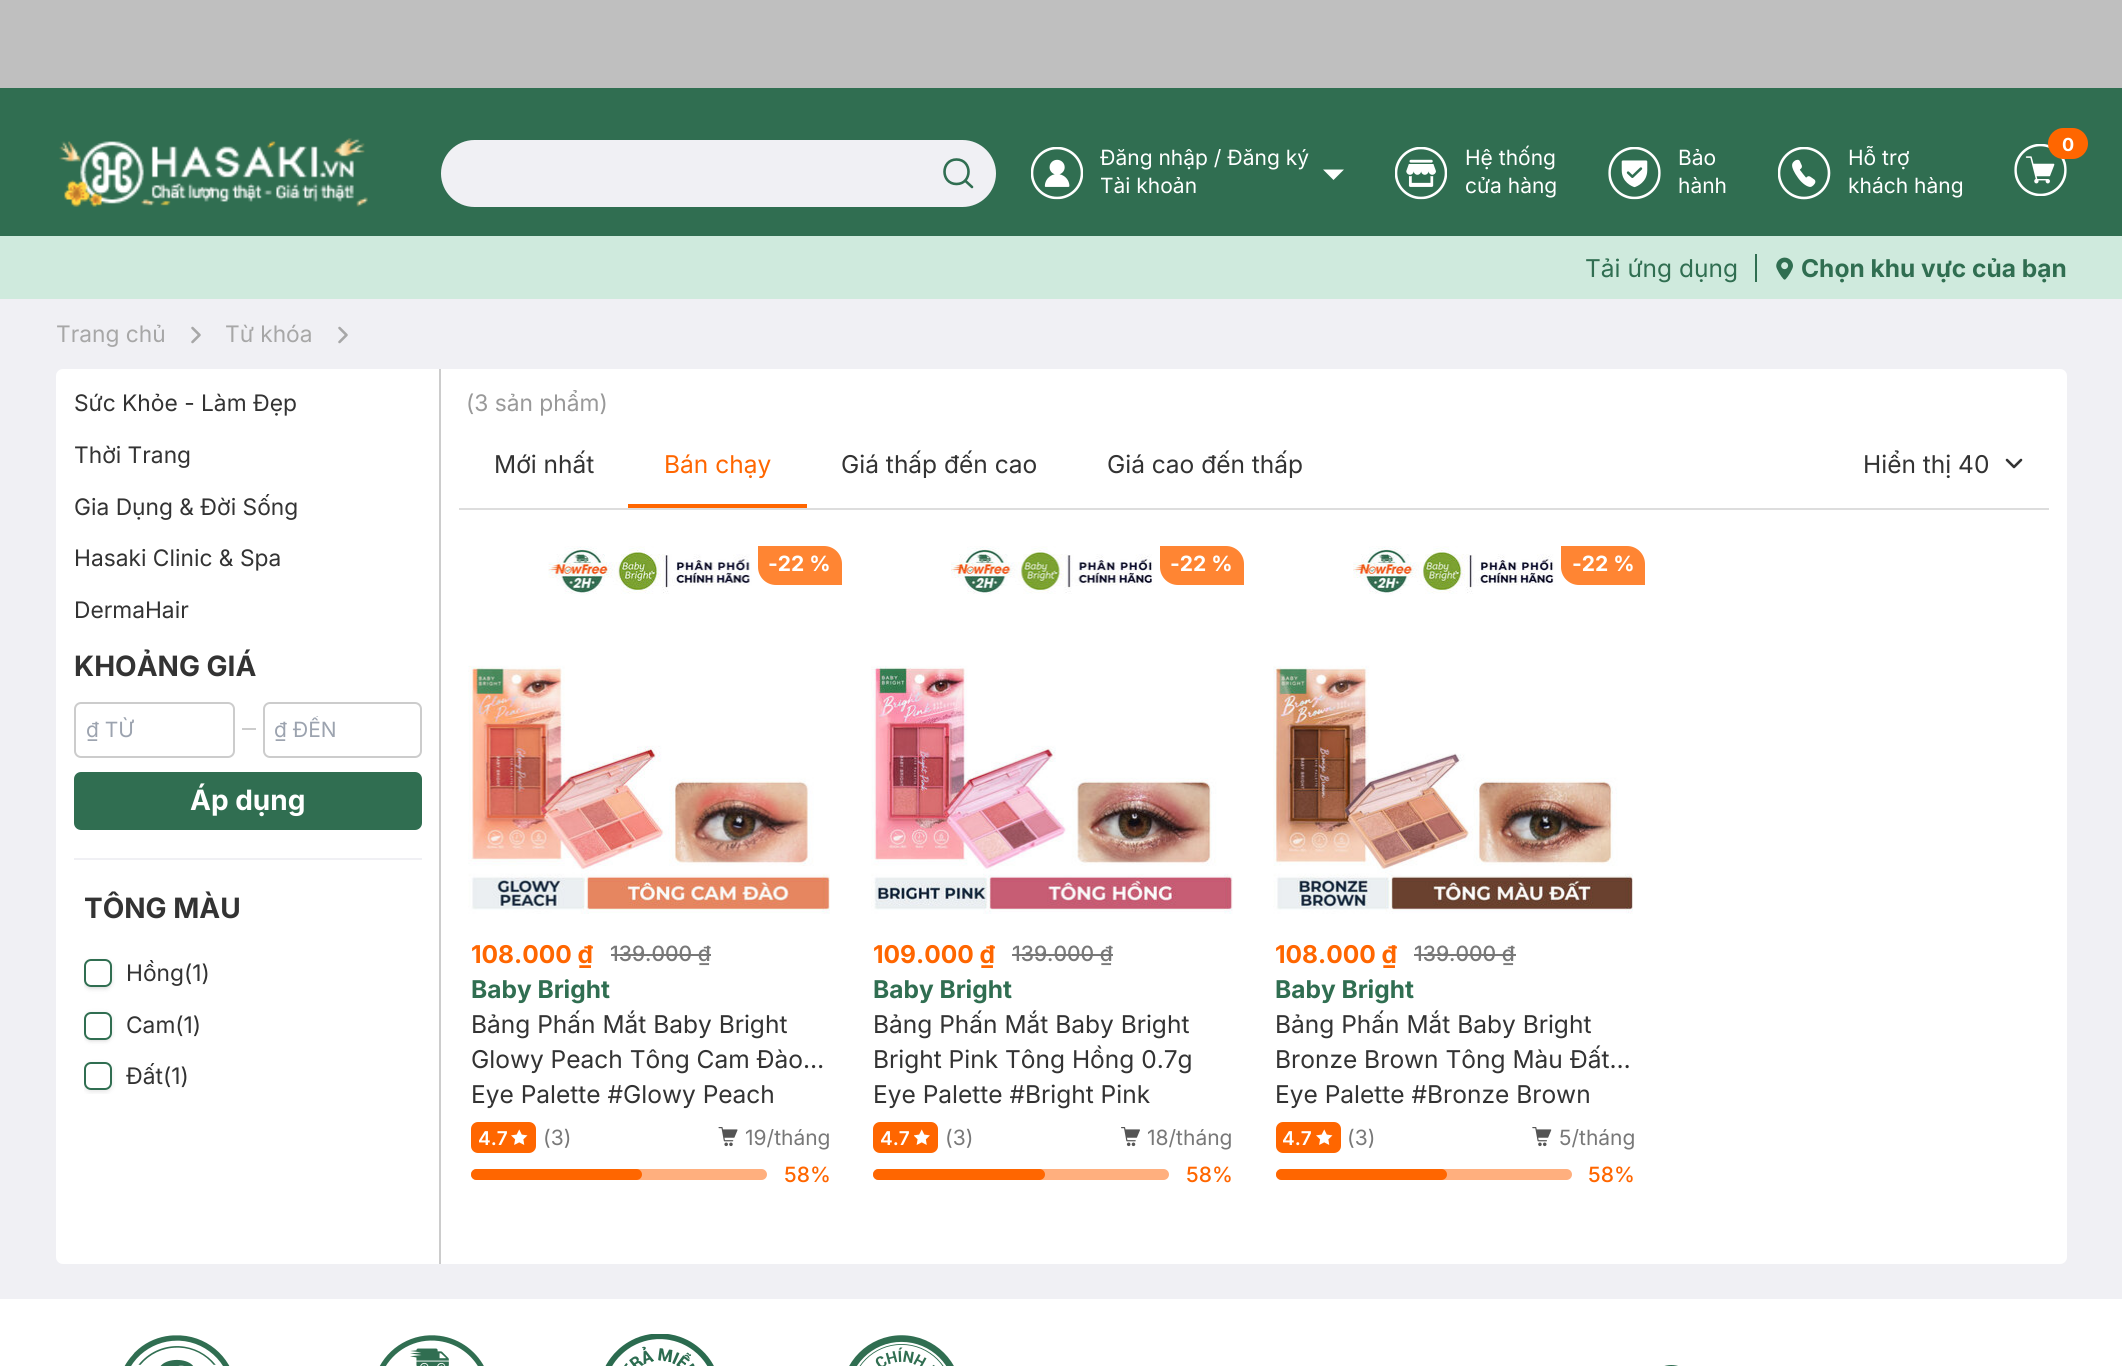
#include <cairo.h>
#include <math.h>
#include <stddef.h>

static cairo_t *c;
static void C(unsigned color){cairo_set_source_rgb(c, (color >> 16) / 255.0, (color >> 8 & 255) / 255.0, (color & 255) / 255.0);}
static void F(const char *family, double size, int italic, int bold){cairo_select_font_face(c, family, italic ? CAIRO_FONT_SLANT_ITALIC : CAIRO_FONT_SLANT_NORMAL,bold ? CAIRO_FONT_WEIGHT_BOLD : CAIRO_FONT_WEIGHT_NORMAL);cairo_set_font_size(c, size);}
static void T(double x, double y, const char *s){cairo_move_to(c, x, y);cairo_show_text(c, s);}
static void R(double x, double y, double w, double h){cairo_rectangle(c, x, y, w, h);cairo_fill(c);}
static void Q(double x, double y, double w, double h, double r){cairo_new_sub_path(c);cairo_arc(c, x + w - r, y + h - r, r, 0, M_PI / 2);cairo_arc(c, x + r, y + h - r, r, M_PI / 2, M_PI);cairo_arc(c, x + r, y + r, r, M_PI, 1.5 * M_PI);cairo_arc(c, x + w - r, y + r, r, 1.5 * M_PI, 2 * M_PI);cairo_close_path(c);}
static void S(double x, double y, double w, double h, double r, double blur, double alpha){cairo_push_group_with_content(c, CAIRO_CONTENT_ALPHA);cairo_set_operator(c, CAIRO_OPERATOR_SOURCE);for (int i = 15; i >= -15 && fmin(w, h) + blur * i / 3 > 0; i -= 2) {double e = blur * i / 6;cairo_set_source_rgba(c, 0, 0, 0, alpha * erfc((i - 1) / 8.5) / 2);Q(x - e, y - e, w + 2 * e, h + 2 * e, fmax(0, fmin(r + e + blur * .6, fmin(w, h) / 2 + e)));cairo_fill(c);}cairo_pattern_t *soft = cairo_pop_group(c);cairo_mask(c, soft);cairo_pattern_destroy(soft);}
static void I(const char *path, double x, double y, double w, double h){cairo_surface_t *image = cairo_image_surface_create_from_png(path);cairo_save(c);cairo_set_source_surface(c, image, x, y);cairo_rectangle(c, x, y, w, h);cairo_fill(c);cairo_restore(c);cairo_surface_destroy(image);}
int main(void) {
cairo_surface_t *surface = cairo_image_surface_create(CAIRO_FORMAT_RGB24, 2122, 1366);
c = cairo_create(surface);
cairo_font_options_t *options = cairo_font_options_create();
cairo_font_options_set_hint_metrics(options, CAIRO_HINT_METRICS_OFF);
cairo_font_options_set_hint_style(options, CAIRO_HINT_STYLE_NONE);
cairo_set_font_options(c, options);
cairo_set_miter_limit(c, 4);
C(0xf0f0f4);
cairo_paint(c);
C(0x306e51);
R(0,88,2122,148);
C(0xbfbfbf);
R(0,0,2122,88);
I("1.png",59,138,309,69);
C(0xf0f0f4);
Q(441,140,555,67,33.5);
cairo_fill(c);
cairo_new_path(c);
cairo_move_to(c,956.5,184);
cairo_curve_to(c,972.5,184,972.5,159.5,956.5,159.5);
cairo_curve_to(c,940.5,159.5,940.5,184,956.5,184);
cairo_close_path(c);
cairo_move_to(c,972,187);
cairo_line_to(c,965,180.5);
C(0x306e51);
cairo_set_line_width(c,2.6);
cairo_set_line_cap(c,CAIRO_LINE_CAP_ROUND);
cairo_set_line_join(c,CAIRO_LINE_JOIN_ROUND);
cairo_stroke(c);
I("2.png",1031,147,52,53);
F("Inter",21,0,0);
C(0xffffff);
T(1100,165,"Đăng nhập / Đăng ký");
T(1100,193,"Tài khoản");
cairo_new_path(c);
cairo_move_to(c,1344,169.5);
cairo_line_to(c,1333.5,180);
cairo_line_to(c,1323,169.5);
cairo_close_path(c);
cairo_fill(c);
I("3.png",1395,147,52,53);
T(1465,165,"Hệ thống");
T(1465,193,"cửa hàng");
I("4.png",1608,147,53,53);
T(1678,165,"Bảo");
T(1678,193,"hành");
I("5.png",1778,147,53,53);
T(1848,165,"Hỗ trợ");
T(1848,193,"khách hàng");
I("6.png",2014,144,53,52);
C(0xff6600);
Q(2048,128,40,31,15.5);
cairo_fill(c);
F("Inter",18,0,1);
C(0xffffff);
T(2062,151,"0");
C(0xcfeadd);
R(0,236,2122,63);
F("Inter",24.5,0,0);
C(0x306e51);
T(1585,277,"Tải ứng dụng");
R(1755,254,2,28);
I("7.png",1776,257,17,23);
F("Inter",24.5,0,1);
T(1801,277,"Chọn khu vực của bạn");
F("Inter",22.75,0,0);
C(0xa7a7a7);
T(56,342,"Trang chủ");
cairo_new_path(c);
cairo_move_to(c,192.5,328);
cairo_line_to(c,199.5,335);
cairo_line_to(c,192.5,342);
cairo_stroke(c);
T(225,342,"Từ khóa");
cairo_new_path(c);
cairo_move_to(c,339.5,328);
cairo_line_to(c,346.5,335);
cairo_line_to(c,339.5,342);
cairo_stroke(c);
C(0xffffff);
Q(56,369,2011,895,7);
cairo_fill(c);
C(0xcccccc);
R(439,369,2,895);
C(0x333333);
T(74,411,"Sức Khỏe - Làm Đẹp");
T(74,463,"Thời Trang");
T(74,515,"Gia Dụng & Đời Sống");
T(74,566,"Hasaki Clinic & Spa");
T(74,618,"DermaHair");
F("Inter",28,0,1);
T(74,676,"KHOẢNG GIÁ");
Q(75,703,159,54,6);
C(0xcccccc);
cairo_set_line_width(c,2);
cairo_set_line_cap(c,CAIRO_LINE_CAP_BUTT);
cairo_set_line_join(c,CAIRO_LINE_JOIN_MITER);
cairo_stroke(c);
F("Inter",21,0,0);
C(0x9ca3af);
T(86,737,"₫ TỪ");
C(0xcccccc);
R(242,728,14,2);
Q(264,703,157,54,6);
cairo_stroke(c);
cairo_save(c);
cairo_rectangle(c,275,716,135,26);
cairo_clip(c);
C(0x9ca3af);
T(274,737,"₫ ĐẾN");
cairo_restore(c);
C(0x306e51);
Q(74,772,348,58,7);
cairo_fill(c);
F("Inter",28,0,1);
C(0xffffff);
T(190,810,"Áp dụng");
C(0xf0f0f4);
R(74,858,348,2);
C(0x333333);
T(84,918,"TÔNG MÀU");
cairo_save(c);
cairo_set_fill_rule(c,CAIRO_FILL_RULE_EVEN_ODD);
cairo_new_path(c);
cairo_move_to(c,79,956);
cairo_line_to(c,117,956);
cairo_line_to(c,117,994);
cairo_line_to(c,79,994);
cairo_close_path(c);
cairo_move_to(c,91,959);
cairo_line_to(c,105,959);
cairo_curve_to(c,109,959,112,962,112,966);
cairo_line_to(c,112,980);
cairo_curve_to(c,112,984,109,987,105,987);
cairo_line_to(c,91,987);
cairo_curve_to(c,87,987,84,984,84,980);
cairo_line_to(c,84,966);
cairo_curve_to(c,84,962,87,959,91,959);
cairo_close_path(c);
cairo_clip(c);
C(0x000000);
S(86,963,24,24,5,2,.1);
cairo_restore(c);
cairo_save(c);
cairo_rectangle(c,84,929,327,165);
cairo_clip(c);
cairo_set_fill_rule(c,CAIRO_FILL_RULE_EVEN_ODD);
cairo_new_path(c);
cairo_move_to(c,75,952);
cairo_line_to(c,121,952);
cairo_line_to(c,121,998);
cairo_line_to(c,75,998);
cairo_close_path(c);
cairo_move_to(c,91,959);
cairo_line_to(c,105,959);
cairo_curve_to(c,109,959,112,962,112,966);
cairo_line_to(c,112,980);
cairo_curve_to(c,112,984,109,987,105,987);
cairo_line_to(c,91,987);
cairo_curve_to(c,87,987,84,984,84,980);
cairo_line_to(c,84,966);
cairo_curve_to(c,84,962,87,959,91,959);
cairo_close_path(c);
cairo_clip(c);
C(0x000000);
S(84,961,28,28,7,2.5,.1);
cairo_restore(c);
Q(85,960,26,26,6);
C(0x306e51);
cairo_stroke(c);
F("Inter",22.75,0,0);
C(0x333333);
T(126,981,"Hồng(1)");
cairo_save(c);
cairo_set_fill_rule(c,CAIRO_FILL_RULE_EVEN_ODD);
cairo_new_path(c);
cairo_move_to(c,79,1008);
cairo_line_to(c,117,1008);
cairo_line_to(c,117,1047);
cairo_line_to(c,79,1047);
cairo_close_path(c);
cairo_move_to(c,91,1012);
cairo_line_to(c,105,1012);
cairo_curve_to(c,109,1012,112,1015,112,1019);
cairo_line_to(c,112,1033);
cairo_curve_to(c,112,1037,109,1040,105,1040);
cairo_line_to(c,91,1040);
cairo_curve_to(c,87,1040,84,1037,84,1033);
cairo_line_to(c,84,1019);
cairo_curve_to(c,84,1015,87,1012,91,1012);
cairo_close_path(c);
cairo_clip(c);
C(0x000000);
S(86,1015,24,25,5,2,.1);
cairo_restore(c);
cairo_save(c);
cairo_rectangle(c,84,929,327,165);
cairo_clip(c);
cairo_set_fill_rule(c,CAIRO_FILL_RULE_EVEN_ODD);
cairo_new_path(c);
cairo_move_to(c,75,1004);
cairo_line_to(c,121,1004);
cairo_line_to(c,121,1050);
cairo_line_to(c,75,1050);
cairo_close_path(c);
cairo_move_to(c,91,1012);
cairo_line_to(c,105,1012);
cairo_curve_to(c,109,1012,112,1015,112,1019);
cairo_line_to(c,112,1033);
cairo_curve_to(c,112,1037,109,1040,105,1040);
cairo_line_to(c,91,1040);
cairo_curve_to(c,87,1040,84,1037,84,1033);
cairo_line_to(c,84,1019);
cairo_curve_to(c,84,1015,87,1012,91,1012);
cairo_close_path(c);
cairo_clip(c);
C(0x000000);
S(84,1013,28,28,7,2.5,.1);
cairo_restore(c);
Q(85,1013,26,26,6);
C(0x306e51);
cairo_stroke(c);
C(0x333333);
T(126,1033,"Cam(1)");
cairo_save(c);
cairo_rectangle(c,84,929,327,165);
cairo_clip(c);
cairo_set_fill_rule(c,CAIRO_FILL_RULE_EVEN_ODD);
cairo_new_path(c);
cairo_move_to(c,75,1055);
cairo_line_to(c,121,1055);
cairo_line_to(c,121,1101);
cairo_line_to(c,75,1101);
cairo_close_path(c);
cairo_move_to(c,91,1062);
cairo_line_to(c,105,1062);
cairo_curve_to(c,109,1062,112,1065,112,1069);
cairo_line_to(c,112,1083);
cairo_curve_to(c,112,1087,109,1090,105,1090);
cairo_line_to(c,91,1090);
cairo_curve_to(c,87,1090,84,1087,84,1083);
cairo_line_to(c,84,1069);
cairo_curve_to(c,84,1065,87,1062,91,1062);
cairo_close_path(c);
cairo_clip(c);
C(0x000000);
S(84,1064,28,28,7,2.5,.1);
cairo_restore(c);
Q(85,1063,26,26,6);
C(0x306e51);
cairo_stroke(c);
C(0x333333);
T(126,1084,"Đất(1)");
C(0x999999);
T(466,411,"(3 sản phẩm)");
C(0xdddddd);
R(459,508,1590,2);
F("Inter",24.5,0,0);
C(0x333333);
T(494,473,"Mới nhất");
C(0xff6600);
T(664,473,"Bán chạy");
R(628,504,179,4);
C(0x333333);
T(841,473,"Giá thấp đến cao");
T(1107,473,"Giá cao đến thấp");
T(1863,473,"Hiển thị 40");
cairo_new_path(c);
cairo_move_to(c,2021,460);
cairo_line_to(c,2014,467);
cairo_line_to(c,2007,460);
cairo_set_line_width(c,2.6);
cairo_set_line_cap(c,CAIRO_LINE_CAP_ROUND);
cairo_set_line_join(c,CAIRO_LINE_JOIN_ROUND);
cairo_stroke(c);
I("8.png",468,546,362,368);
C(0xff8533);
cairo_new_path(c);
cairo_move_to(c,758,546);
cairo_line_to(c,824,546);
cairo_curve_to(c,834,546,842,554,842,564);
cairo_line_to(c,842,585);
cairo_line_to(c,776,585);
cairo_curve_to(c,766,585,758,577,758,567);
cairo_close_path(c);
cairo_fill(c);
F("Inter",21,0,1);
C(0xffffff);
T(768,571,"-22 %");
F("Inter",24.5,0,1);
C(0xff6600);
T(471,963,"108.000 ₫");
F("Inter Medium",21,0,0);
C(0x787878);
T(610,961,"139.000 ₫");
R(611,954,100,2);
F("Inter",24.5,0,1);
C(0x306e51);
T(471,998,"Baby Bright");
F("Inter",24.5,0,0);
C(0x333333);
T(471,1033,"Bảng Phấn Mắt Baby Bright");
T(471,1068,"Glowy Peach Tông Cam Đào…");
T(471,1103,"Eye Palette #Glowy Peach");
C(0xff6600);
Q(471,1122,65,31,7);
cairo_fill(c);
F("Inter SemiBold",19,0,0);
C(0xffffff);
T(478,1145,"4.7");
I("9.png",511,1129,17,16);
F("Inter",21,0,0);
C(0x787878);
T(543,1145,"(3)");
I("10.png",718,1127,20,20);
T(745,1145,"19/tháng");
C(0xffaf7e);
Q(471,1169,296,11,5.5);
cairo_fill(c);
C(0xff6600);
Q(471,1169,171,11,5.5);
cairo_fill(c);
F("Inter Medium",21,0,0);
T(784,1182,"58%");
I("11.png",871,546,362,368);
C(0xff8533);
cairo_new_path(c);
cairo_move_to(c,1160,546);
cairo_line_to(c,1226,546);
cairo_curve_to(c,1236,546,1244,554,1244,564);
cairo_line_to(c,1244,585);
cairo_line_to(c,1178,585);
cairo_curve_to(c,1168,585,1160,577,1160,567);
cairo_close_path(c);
cairo_fill(c);
F("Inter",21,0,1);
C(0xffffff);
T(1170,571,"-22 %");
F("Inter",24.5,0,1);
C(0xff6600);
T(873,963,"109.000 ₫");
F("Inter Medium",21,0,0);
C(0x787878);
T(1012,961,"139.000 ₫");
R(1012,954,101,2);
F("Inter",24.5,0,1);
C(0x306e51);
T(873,998,"Baby Bright");
F("Inter",24.5,0,0);
C(0x333333);
T(873,1033,"Bảng Phấn Mắt Baby Bright");
T(873,1068,"Bright Pink Tông Hồng 0.7g");
T(873,1103,"Eye Palette #Bright Pink");
C(0xff6600);
Q(873,1122,65,31,7);
cairo_fill(c);
F("Inter SemiBold",19,0,0);
C(0xffffff);
T(880,1145,"4.7");
I("12.png",914,1129,16,16);
F("Inter",21,0,0);
C(0x787878);
T(945,1145,"(3)");
I("13.png",1121,1127,19,20);
T(1147,1145,"18/tháng");
C(0xffaf7e);
Q(873,1169,296,11,5.5);
cairo_fill(c);
C(0xff6600);
Q(873,1169,172,11,5.5);
cairo_fill(c);
F("Inter Medium",21,0,0);
T(1186,1182,"58%");
I("14.png",1273,546,360,368);
C(0xff8533);
cairo_new_path(c);
cairo_move_to(c,1561,546);
cairo_line_to(c,1627,546);
cairo_curve_to(c,1637,546,1645,554,1645,564);
cairo_line_to(c,1645,585);
cairo_line_to(c,1579,585);
cairo_curve_to(c,1569,585,1561,577,1561,567);
cairo_close_path(c);
cairo_fill(c);
F("Inter",21,0,1);
C(0xffffff);
T(1572,571,"-22 %");
F("Inter",24.5,0,1);
C(0xff6600);
T(1275,963,"108.000 ₫");
F("Inter Medium",21,0,0);
C(0x787878);
T(1414,961,"139.000 ₫");
R(1414,954,102,2);
F("Inter",24.5,0,1);
C(0x306e51);
T(1275,998,"Baby Bright");
F("Inter",24.5,0,0);
C(0x333333);
T(1275,1033,"Bảng Phấn Mắt Baby Bright");
T(1275,1068,"Bronze Brown Tông Màu Đất…");
T(1275,1103,"Eye Palette #Bronze Brown");
C(0xff6600);
Q(1276,1122,65,31,7);
cairo_fill(c);
F("Inter SemiBold",19,0,0);
C(0xffffff);
T(1282,1145,"4.7");
I("9.png",1316,1129,17,16);
F("Inter",21,0,0);
C(0x787878);
T(1347,1145,"(3)");
I("15.png",1532,1127,20,20);
T(1559,1145,"5/tháng");
C(0xffaf7e);
Q(1276,1169,296,11,5.5);
cairo_fill(c);
C(0xff6600);
Q(1276,1169,171,11,5.5);
cairo_fill(c);
F("Inter Medium",21,0,0);
T(1588,1182,"58%");
C(0xffffff);
R(0,1299,2122,67);
I("16.png",124,1335,106,31);
I("17.png",379,1335,105,31);
I("18.png",605,1334,109,32);
I("19.png",849,1335,105,31);
I("20.png",1664,1365,14,1);
cairo_surface_write_to_png(surface, "o.png");
cairo_font_options_destroy(options);
cairo_destroy(c);
cairo_surface_destroy(surface);
return 0;
}
